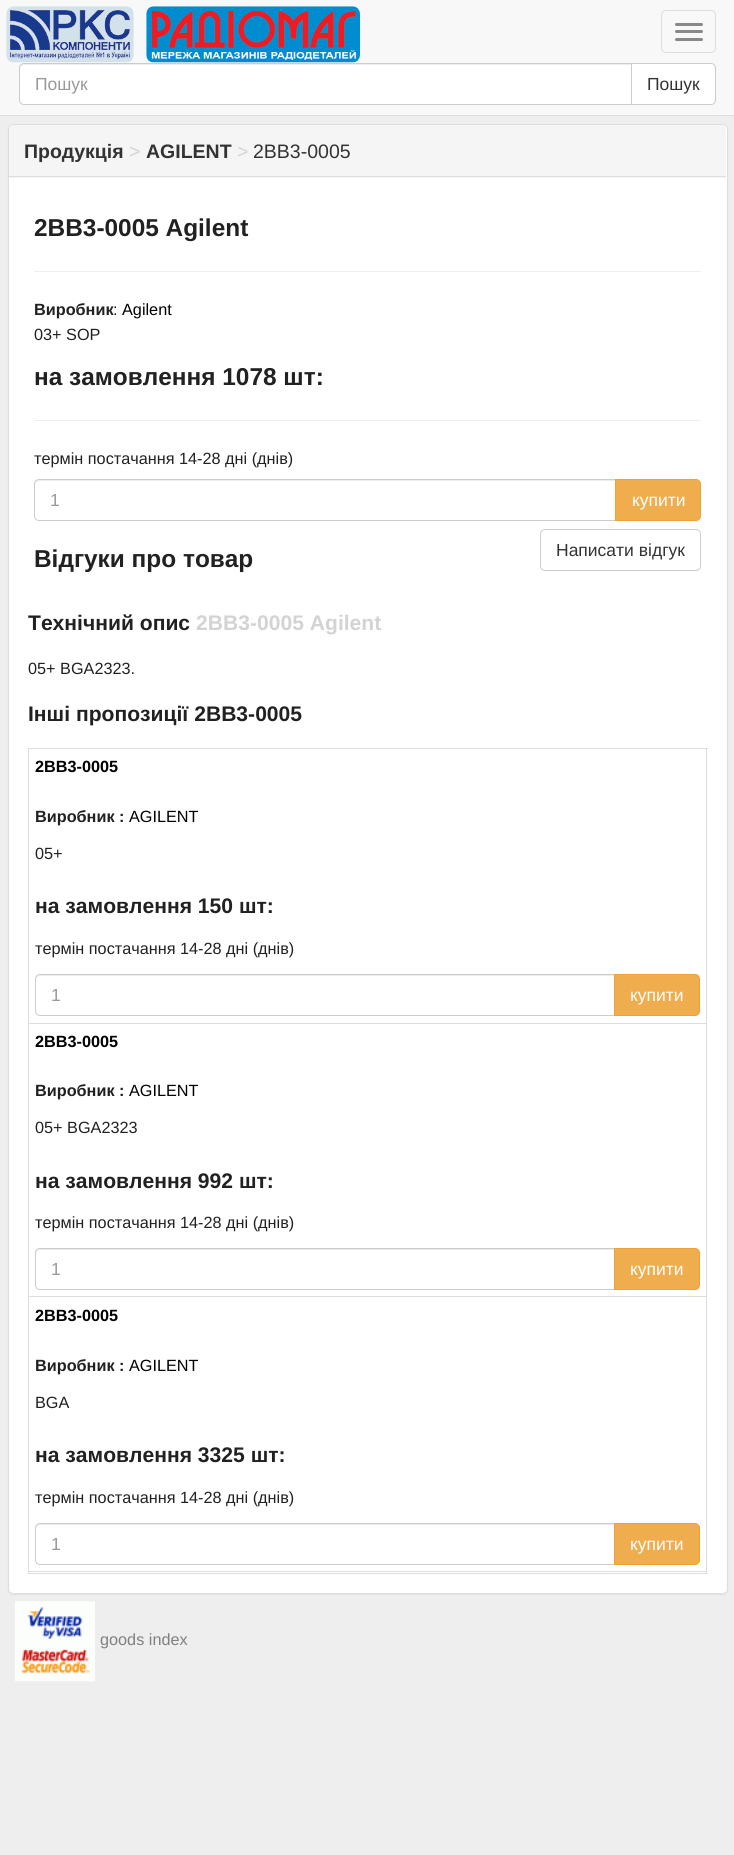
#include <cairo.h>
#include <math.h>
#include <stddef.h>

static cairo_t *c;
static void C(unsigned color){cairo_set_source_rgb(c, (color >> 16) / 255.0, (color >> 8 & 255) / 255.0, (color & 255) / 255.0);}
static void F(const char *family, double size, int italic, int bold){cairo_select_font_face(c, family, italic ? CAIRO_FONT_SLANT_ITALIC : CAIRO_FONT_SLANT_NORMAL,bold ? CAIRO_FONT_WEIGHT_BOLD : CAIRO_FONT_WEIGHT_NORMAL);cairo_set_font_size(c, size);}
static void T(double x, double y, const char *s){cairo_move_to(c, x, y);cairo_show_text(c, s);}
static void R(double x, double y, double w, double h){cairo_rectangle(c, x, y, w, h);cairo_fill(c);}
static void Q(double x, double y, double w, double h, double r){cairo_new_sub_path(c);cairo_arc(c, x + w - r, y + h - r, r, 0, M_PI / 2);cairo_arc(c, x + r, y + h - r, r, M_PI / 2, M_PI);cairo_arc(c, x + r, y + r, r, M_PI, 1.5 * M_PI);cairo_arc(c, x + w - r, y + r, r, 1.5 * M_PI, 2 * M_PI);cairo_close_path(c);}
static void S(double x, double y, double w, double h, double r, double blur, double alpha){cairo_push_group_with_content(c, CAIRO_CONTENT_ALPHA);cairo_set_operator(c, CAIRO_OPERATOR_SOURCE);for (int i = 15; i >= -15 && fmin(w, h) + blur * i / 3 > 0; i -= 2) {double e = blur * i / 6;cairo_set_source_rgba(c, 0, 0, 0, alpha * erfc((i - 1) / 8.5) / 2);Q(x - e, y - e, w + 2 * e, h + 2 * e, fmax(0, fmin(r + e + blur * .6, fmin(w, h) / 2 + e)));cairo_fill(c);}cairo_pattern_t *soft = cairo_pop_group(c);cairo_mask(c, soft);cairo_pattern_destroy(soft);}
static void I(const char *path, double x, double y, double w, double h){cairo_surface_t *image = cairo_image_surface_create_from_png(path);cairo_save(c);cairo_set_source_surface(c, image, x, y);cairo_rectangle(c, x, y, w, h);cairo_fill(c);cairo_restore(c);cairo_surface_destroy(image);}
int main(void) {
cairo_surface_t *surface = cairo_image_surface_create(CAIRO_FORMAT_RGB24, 734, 1855);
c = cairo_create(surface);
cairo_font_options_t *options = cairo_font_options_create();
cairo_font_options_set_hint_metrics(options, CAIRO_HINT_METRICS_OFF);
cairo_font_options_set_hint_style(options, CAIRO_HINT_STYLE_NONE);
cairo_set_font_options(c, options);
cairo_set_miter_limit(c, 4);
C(0xeeeeee);
cairo_paint(c);
C(0xf8f8f8);
R(0,0,734,115);
C(0xdddddd);
R(0,115,734,1);
I("1.png",6,6,128,57);
I("2.png",146,6,214,57);
Q(661.5,10.5,54,42,4.5);
cairo_set_line_width(c,1);
cairo_stroke(c);
C(0x888888);
Q(675,23,28,3,1.5);
cairo_fill(c);
Q(675,30,28,3,1.5);
cairo_fill(c);
Q(675,38,28,3,1.5);
cairo_fill(c);
C(0xffffff);
cairo_new_path(c);
cairo_move_to(c,24,63);
cairo_line_to(c,633,63);
cairo_line_to(c,633,105);
cairo_line_to(c,24,105);
cairo_curve_to(c,21,105,19,103,19,100);
cairo_line_to(c,19,68);
cairo_curve_to(c,19,65,21,63,24,63);
cairo_close_path(c);
cairo_fill(c);
C(0xececec);
cairo_new_path(c);
cairo_move_to(c,24,65);
cairo_line_to(c,631,65);
cairo_line_to(c,631,64);
cairo_line_to(c,24,64);
cairo_curve_to(c,21,64,20,66,20,69);
cairo_curve_to(c,20,67,22,65,24,65);
cairo_close_path(c);
cairo_fill(c);
cairo_new_path(c);
cairo_move_to(c,24,63.5);
cairo_line_to(c,632.5,63.5);
cairo_line_to(c,632.5,104.5);
cairo_line_to(c,24,104.5);
cairo_curve_to(c,21.5,104.5,19.5,102.5,19.5,100);
cairo_line_to(c,19.5,68);
cairo_curve_to(c,19.5,65.5,21.5,63.5,24,63.5);
cairo_close_path(c);
C(0xcccccc);
cairo_stroke(c);
F("Liberation Sans",17.5,0,0);
C(0x999999);
T(35,90,"Пошук");
C(0xffffff);
cairo_new_path(c);
cairo_move_to(c,631.5,63.5);
cairo_line_to(c,711,63.5);
cairo_curve_to(c,713.5,63.5,715.5,65.5,715.5,68);
cairo_line_to(c,715.5,100);
cairo_curve_to(c,715.5,102.5,713.5,104.5,711,104.5);
cairo_line_to(c,631.5,104.5);
cairo_close_path(c);
cairo_fill_preserve(c);
C(0xcccccc);
cairo_stroke(c);
C(0x333333);
T(647,90,"Пошук");
C(0x000000);
S(8,125,720,1470,5,.5,.05);
C(0xffffff);
Q(8.5,124.5,719,1469,4.5);
cairo_fill_preserve(c);
C(0xdddddd);
cairo_stroke(c);
C(0xf5f5f5);
cairo_new_path(c);
cairo_move_to(c,13,125);
cairo_line_to(c,722,125);
cairo_curve_to(c,724,125,726,127,726,129);
cairo_line_to(c,726,178);
cairo_line_to(c,9,178);
cairo_line_to(c,9,129);
cairo_curve_to(c,9,127,11,125,13,125);
cairo_close_path(c);
cairo_fill(c);
C(0xdddddd);
R(9,176,717,1);
F("Liberation Sans",19.5,0,1);
C(0x333333);
T(24,158,"Продукція");
F("Liberation Sans",19.5,0,0);
C(0xd3d3d3);
T(129,158,">");
F("Liberation Sans",19.5,0,1);
C(0x333333);
T(146,158,"AGILENT");
F("Liberation Sans",19.5,0,0);
C(0xd3d3d3);
T(237,158,">");
C(0x333333);
T(253,158,"2BB3-0005");
F("Liberation Sans",24.4,0,1);
C(0x212121);
T(34,236,"2BB3-0005 Agilent");
C(0xeeeeee);
R(34,271,667,1);
F("Liberation Sans",16.25,0,1);
C(0x212121);
T(34,315,"Виробник");
F("Liberation Sans",16.25,0,0);
T(113,315,":");
C(0x000000);
T(122,315,"Agilent");
C(0x212121);
T(34,340,"03+ SOP");
F("Liberation Sans",24.4,0,1);
T(34,385,"на замовлення 1078 шт:");
C(0xeeeeee);
R(34,420,667,1);
F("Liberation Sans",16.25,0,0);
C(0x212121);
T(34,464,"термін постачання 14-28 дні (днів)");
C(0xececec);
cairo_new_path(c);
cairo_move_to(c,39,481);
cairo_line_to(c,615,481);
cairo_line_to(c,615,480);
cairo_line_to(c,39,480);
cairo_curve_to(c,36,480,35,482,35,485);
cairo_curve_to(c,35,483,37,481,39,481);
cairo_close_path(c);
cairo_fill(c);
cairo_new_path(c);
cairo_move_to(c,39,479.5);
cairo_line_to(c,615.5,479.5);
cairo_line_to(c,615.5,520.5);
cairo_line_to(c,39,520.5);
cairo_curve_to(c,36.5,520.5,34.5,518.5,34.5,516);
cairo_line_to(c,34.5,484);
cairo_curve_to(c,34.5,481.5,36.5,479.5,39,479.5);
cairo_close_path(c);
C(0xcccccc);
cairo_stroke(c);
F("Liberation Sans",17.5,0,0);
C(0x999999);
T(50,506,"1");
C(0xf0ad4e);
cairo_new_path(c);
cairo_move_to(c,615.5,479.5);
cairo_line_to(c,696,479.5);
cairo_curve_to(c,698.5,479.5,700.5,481.5,700.5,484);
cairo_line_to(c,700.5,516);
cairo_curve_to(c,700.5,518.5,698.5,520.5,696,520.5);
cairo_line_to(c,615.5,520.5);
cairo_close_path(c);
cairo_fill_preserve(c);
C(0xeea236);
cairo_stroke(c);
C(0xffffff);
T(632,506,"купити");
F("Liberation Sans",24.4,0,1);
C(0x212121);
T(34,567,"Відгуки про товар");
Q(540.5,529.5,160,41,4.5);
C(0xcccccc);
cairo_stroke(c);
F("Liberation Sans",17.5,0,0);
C(0x333333);
T(556,556,"Написати відгук");
F("Liberation Sans",21.1,0,1);
C(0x212121);
T(28,630,"Технічний опис");
C(0xd3d3d3);
T(196,630,"2BB3-0005 Agilent");
F("Liberation Sans",16.25,0,0);
C(0x212121);
T(28,674,"05+ BGA2323.");
F("Liberation Sans",21.1,0,1);
T(28,721,"Інші пропозиції 2BB3-0005");
C(0xdddddd);
R(28,748,680,1);
R(706,748,1,826);
R(28,1573,680,1);
R(28,748,1,826);
R(29,1023,677,1);
F("Liberation Sans",16.25,0,1);
C(0x000000);
T(35,772,"2BB3-0005");
C(0x212121);
T(35,822,"Виробник :");
F("Liberation Sans",16.25,0,0);
C(0x000000);
T(129,822,"AGILENT");
C(0x212121);
T(35,859,"05+");
F("Liberation Sans",21.1,0,1);
T(35,913,"на замовлення 150 шт:");
F("Liberation Sans",16.25,0,0);
T(35,954,"термін постачання 14-28 дні (днів)");
C(0xececec);
cairo_new_path(c);
cairo_move_to(c,40,976);
cairo_line_to(c,614,976);
cairo_line_to(c,614,975);
cairo_line_to(c,40,975);
cairo_curve_to(c,37,975,36,977,36,980);
cairo_curve_to(c,36,978,38,976,40,976);
cairo_close_path(c);
cairo_fill(c);
cairo_new_path(c);
cairo_move_to(c,40,974.5);
cairo_line_to(c,614.5,974.5);
cairo_line_to(c,614.5,1015.5);
cairo_line_to(c,40,1015.5);
cairo_curve_to(c,37.5,1015.5,35.5,1013.5,35.5,1011);
cairo_line_to(c,35.5,979);
cairo_curve_to(c,35.5,976.5,37.5,974.5,40,974.5);
cairo_close_path(c);
C(0xcccccc);
cairo_stroke(c);
F("Liberation Sans",17.5,0,0);
C(0x999999);
T(51,1001,"1");
C(0xf0ad4e);
cairo_new_path(c);
cairo_move_to(c,614.5,974.5);
cairo_line_to(c,695,974.5);
cairo_curve_to(c,697.5,974.5,699.5,976.5,699.5,979);
cairo_line_to(c,699.5,1011);
cairo_curve_to(c,699.5,1013.5,697.5,1015.5,695,1015.5);
cairo_line_to(c,614.5,1015.5);
cairo_close_path(c);
cairo_fill_preserve(c);
C(0xeea236);
cairo_stroke(c);
C(0xffffff);
T(630,1001,"купити");
C(0xdddddd);
R(29,1296,677,1);
F("Liberation Sans",16.25,0,1);
C(0x000000);
T(35,1047,"2BB3-0005");
C(0x212121);
T(35,1096,"Виробник :");
F("Liberation Sans",16.25,0,0);
C(0x000000);
T(129,1096,"AGILENT");
C(0x212121);
T(35,1133,"05+ BGA2323");
F("Liberation Sans",21.1,0,1);
T(35,1188,"на замовлення 992 шт:");
F("Liberation Sans",16.25,0,0);
T(35,1228,"термін постачання 14-28 дні (днів)");
C(0xececec);
cairo_new_path(c);
cairo_move_to(c,40,1250);
cairo_line_to(c,614,1250);
cairo_line_to(c,614,1249);
cairo_line_to(c,40,1249);
cairo_curve_to(c,37,1249,36,1251,36,1254);
cairo_curve_to(c,36,1252,38,1250,40,1250);
cairo_close_path(c);
cairo_fill(c);
cairo_new_path(c);
cairo_move_to(c,40,1248.5);
cairo_line_to(c,614.5,1248.5);
cairo_line_to(c,614.5,1289.5);
cairo_line_to(c,40,1289.5);
cairo_curve_to(c,37.5,1289.5,35.5,1287.5,35.5,1285);
cairo_line_to(c,35.5,1253);
cairo_curve_to(c,35.5,1250.5,37.5,1248.5,40,1248.5);
cairo_close_path(c);
C(0xcccccc);
cairo_stroke(c);
F("Liberation Sans",17.5,0,0);
C(0x999999);
T(51,1275,"1");
C(0xf0ad4e);
cairo_new_path(c);
cairo_move_to(c,614.5,1248.5);
cairo_line_to(c,695,1248.5);
cairo_curve_to(c,697.5,1248.5,699.5,1250.5,699.5,1253);
cairo_line_to(c,699.5,1285);
cairo_curve_to(c,699.5,1287.5,697.5,1289.5,695,1289.5);
cairo_line_to(c,614.5,1289.5);
cairo_close_path(c);
cairo_fill_preserve(c);
C(0xeea236);
cairo_stroke(c);
C(0xffffff);
T(630,1275,"купити");
C(0xdddddd);
R(29,1571,677,1);
F("Liberation Sans",16.25,0,1);
C(0x000000);
T(35,1321,"2BB3-0005");
C(0x212121);
T(35,1371,"Виробник :");
F("Liberation Sans",16.25,0,0);
C(0x000000);
T(129,1371,"AGILENT");
C(0x212121);
T(35,1408,"BGA");
F("Liberation Sans",21.1,0,1);
T(35,1462,"на замовлення 3325 шт:");
F("Liberation Sans",16.25,0,0);
T(35,1503,"термін постачання 14-28 дні (днів)");
C(0xececec);
cairo_new_path(c);
cairo_move_to(c,40,1525);
cairo_line_to(c,614,1525);
cairo_line_to(c,614,1524);
cairo_line_to(c,40,1524);
cairo_curve_to(c,37,1524,36,1526,36,1529);
cairo_curve_to(c,36,1527,38,1525,40,1525);
cairo_close_path(c);
cairo_fill(c);
cairo_new_path(c);
cairo_move_to(c,40,1523.5);
cairo_line_to(c,614.5,1523.5);
cairo_line_to(c,614.5,1564.5);
cairo_line_to(c,40,1564.5);
cairo_curve_to(c,37.5,1564.5,35.5,1562.5,35.5,1560);
cairo_line_to(c,35.5,1528);
cairo_curve_to(c,35.5,1525.5,37.5,1523.5,40,1523.5);
cairo_close_path(c);
C(0xcccccc);
cairo_stroke(c);
F("Liberation Sans",17.5,0,0);
C(0x999999);
T(51,1550,"1");
C(0xf0ad4e);
cairo_new_path(c);
cairo_move_to(c,614.5,1523.5);
cairo_line_to(c,695,1523.5);
cairo_curve_to(c,697.5,1523.5,699.5,1525.5,699.5,1528);
cairo_line_to(c,699.5,1560);
cairo_curve_to(c,699.5,1562.5,697.5,1564.5,695,1564.5);
cairo_line_to(c,614.5,1564.5);
cairo_close_path(c);
cairo_fill_preserve(c);
C(0xeea236);
cairo_stroke(c);
C(0xffffff);
T(630,1550,"купити");
I("3.png",15,1601,80,81);
F("Liberation Sans",16.25,0,0);
C(0x808080);
T(100,1645,"goods index");
cairo_surface_write_to_png(surface, "o.png");
cairo_font_options_destroy(options);
cairo_destroy(c);
cairo_surface_destroy(surface);
return 0;
}
